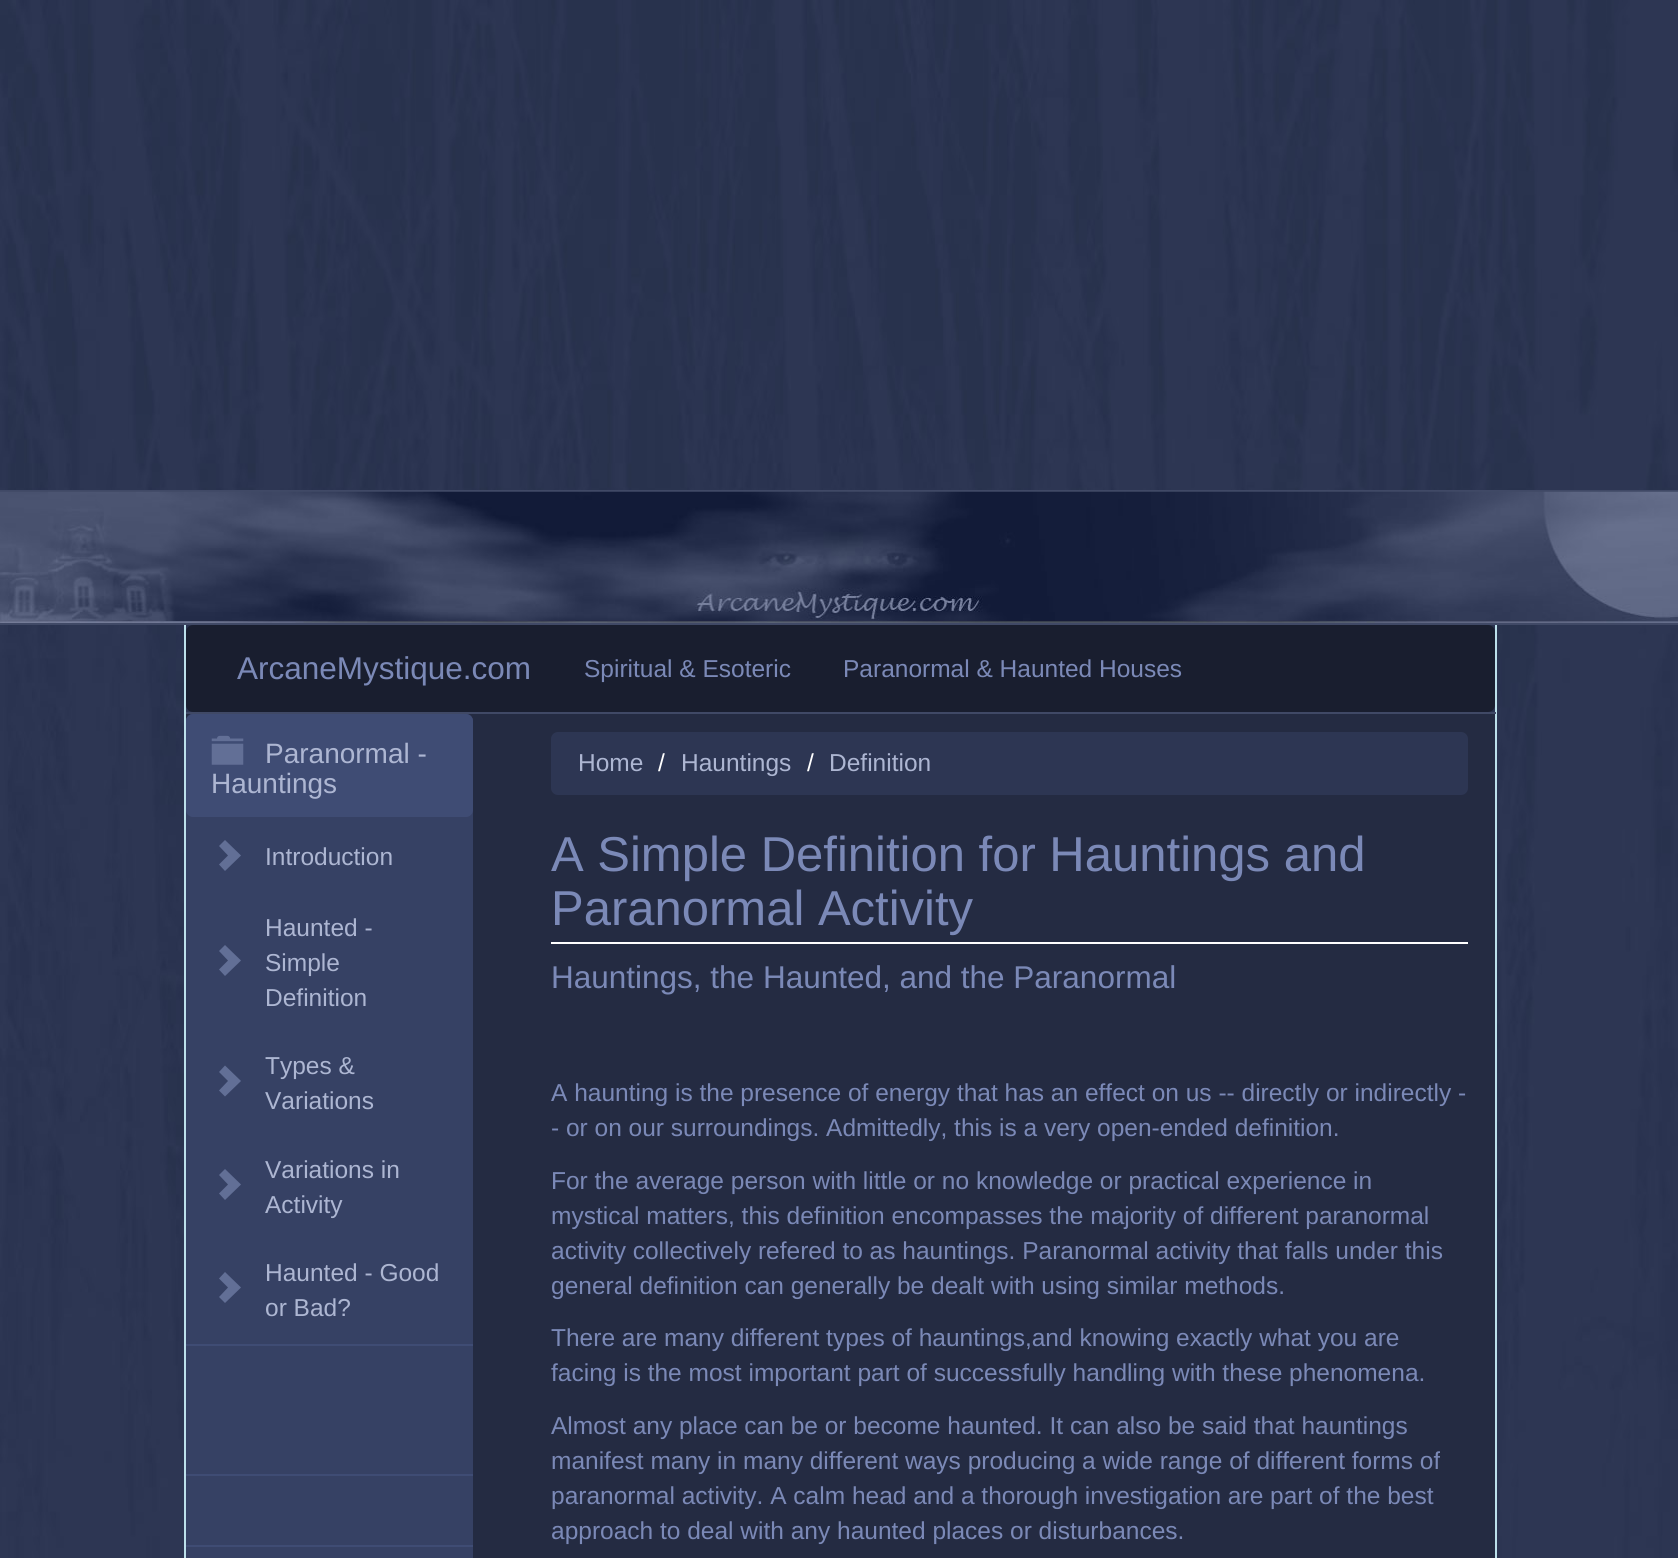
#include <cairo.h>
#include <math.h>
#include <stddef.h>

static cairo_t *c;
static void C(unsigned color){cairo_set_source_rgb(c, (color >> 16) / 255.0, (color >> 8 & 255) / 255.0, (color & 255) / 255.0);}
static void F(const char *family, double size, int italic, int bold){cairo_select_font_face(c, family, italic ? CAIRO_FONT_SLANT_ITALIC : CAIRO_FONT_SLANT_NORMAL,bold ? CAIRO_FONT_WEIGHT_BOLD : CAIRO_FONT_WEIGHT_NORMAL);cairo_set_font_size(c, size);}
static void T(double x, double y, const char *s){cairo_move_to(c, x, y);cairo_show_text(c, s);}
static void R(double x, double y, double w, double h){cairo_rectangle(c, x, y, w, h);cairo_fill(c);}
static void Q(double x, double y, double w, double h, double r){cairo_new_sub_path(c);cairo_arc(c, x + w - r, y + h - r, r, 0, M_PI / 2);cairo_arc(c, x + r, y + h - r, r, M_PI / 2, M_PI);cairo_arc(c, x + r, y + r, r, M_PI, 1.5 * M_PI);cairo_arc(c, x + w - r, y + r, r, 1.5 * M_PI, 2 * M_PI);cairo_close_path(c);}
static void I(const char *path, double x, double y, double w, double h){cairo_surface_t *image = cairo_image_surface_create_from_png(path);cairo_save(c);cairo_set_source_surface(c, image, x, y);cairo_rectangle(c, x, y, w, h);cairo_fill(c);cairo_restore(c);cairo_surface_destroy(image);}
int main(void) {
cairo_surface_t *surface = cairo_image_surface_create(CAIRO_FORMAT_RGB24, 1678, 1558);
c = cairo_create(surface);
cairo_font_options_t *options = cairo_font_options_create();
cairo_font_options_set_hint_metrics(options, CAIRO_HINT_METRICS_OFF);
cairo_font_options_set_hint_style(options, CAIRO_HINT_STYLE_NONE);
cairo_set_font_options(c, options);
cairo_set_miter_limit(c, 4);
C(0xffffff);
cairo_paint(c);
I("1.png",0,0,1678,1558);
C(0x404966);
R(0,490,1678,2);
R(0,623,1678,2);
I("2.png",0,491,1678,132);
C(0xbce0eb);
R(1495,625,2,933);
C(0x404966);
R(184,712,1312,2);
C(0xbce0eb);
R(184,625,2,933);
C(0x191e2f);
Q(186,625,1309,87,7);
cairo_fill(c);
F("Liberation Sans",31.5,0,0);
C(0x7b89b7);
T(237,679,"ArcaneMystique.com");
F("Liberation Sans",24.5,0,0);
T(584,677,"Spiritual & Esoteric");
T(843,677,"Paranormal & Haunted Houses");
C(0x242b42);
R(186,714,1309,844);
C(0x364164);
Q(186,714,287,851,7);
cairo_fill(c);
C(0x3f4c74);
Q(186,714,287,103,7);
cairo_fill(c);
I("3.png",211,735,33,30);
F("Liberation Sans",28,0,0);
C(0xadb6d2);
T(265,763,"Paranormal -");
T(211,793,"Hauntings");
C(0x626f96);
cairo_new_path(c);
cairo_move_to(c,219,864.5);
cairo_line_to(c,228,855.5);
cairo_line_to(c,219,846);
cairo_line_to(c,225,840);
cairo_line_to(c,241,855.5);
cairo_line_to(c,225,871);
cairo_close_path(c);
cairo_fill(c);
F("Liberation Sans",24.5,0,0);
C(0xadb6d2);
T(265,865,"Introduction");
C(0x626f96);
cairo_new_path(c);
cairo_move_to(c,219,969.5);
cairo_line_to(c,228,960.5);
cairo_line_to(c,219,951);
cairo_line_to(c,225,945);
cairo_line_to(c,241,960.5);
cairo_line_to(c,225,976);
cairo_close_path(c);
cairo_fill(c);
C(0xadb6d2);
T(265,936,"Haunted -");
T(265,971,"Simple");
T(265,1006,"Definition");
C(0x626f96);
cairo_new_path(c);
cairo_move_to(c,219,1090.5);
cairo_line_to(c,228,1081);
cairo_line_to(c,219,1072);
cairo_line_to(c,225,1065.5);
cairo_line_to(c,241,1081);
cairo_line_to(c,225,1096.5);
cairo_close_path(c);
cairo_fill(c);
C(0xadb6d2);
T(265,1074,"Types &");
T(265,1109,"Variations");
C(0x626f96);
cairo_new_path(c);
cairo_move_to(c,219,1193.5);
cairo_line_to(c,228,1184.5);
cairo_line_to(c,219,1175);
cairo_line_to(c,225,1169);
cairo_line_to(c,241,1184.5);
cairo_line_to(c,225,1200);
cairo_close_path(c);
cairo_fill(c);
C(0xadb6d2);
T(265,1178,"Variations in");
T(265,1213,"Activity");
C(0x626f96);
cairo_new_path(c);
cairo_move_to(c,219,1297);
cairo_line_to(c,228,1287.5);
cairo_line_to(c,219,1278.5);
cairo_line_to(c,225,1272);
cairo_line_to(c,241,1287.5);
cairo_line_to(c,225,1303);
cairo_close_path(c);
cairo_fill(c);
C(0xadb6d2);
T(265,1281,"Haunted - Good");
T(265,1316,"or Bad?");
C(0x3f4c74);
R(186,1344,287,2);
R(186,1474,287,2);
R(186,1545,287,2);
C(0x2d3653);
Q(551,732,917,63,7);
cairo_fill(c);
C(0xadb6d2);
T(578,771,"Home");
C(0xffffff);
T(658,771,"/");
C(0xadb6d2);
T(681,771,"Hauntings");
C(0xffffff);
T(807,771,"/");
C(0xadb6d2);
T(829,771,"Definition");
F("Liberation Sans",49,0,0);
C(0x7b89b7);
T(551,871,"A Simple Definition for Hauntings and");
T(551,925,"Paranormal Activity");
C(0xffffff);
R(551,942,917,2);
F("Liberation Sans",31.5,0,0);
C(0x7b89b7);
T(551,988,"Hauntings, the Haunted, and the Paranormal");
F("Liberation Sans",24.5,0,0);
T(551,1101,"A haunting is the presence of energy that has an effect on us -- directly or indirectly -");
T(551,1136,"- or on our surroundings. Admittedly, this is a very open-ended definition.");
T(551,1189,"For the average person with little or no knowledge or practical experience in");
T(551,1224,"mystical matters, this definition encompasses the majority of different paranormal");
T(551,1259,"activity collectively refered to as hauntings. Paranormal activity that falls under this");
T(551,1294,"general definition can generally be dealt with using similar methods.");
T(551,1346,"There are many different types of hauntings,and knowing exactly what you are");
T(551,1381,"facing is the most important part of successfully handling with these phenomena.");
T(551,1434,"Almost any place can be or become haunted. It can also be said that hauntings");
T(551,1469,"manifest many in many different ways producing a wide range of different forms of");
T(551,1504,"paranormal activity. A calm head and a thorough investigation are part of the best");
T(551,1539,"approach to deal with any haunted places or disturbances.");
cairo_surface_write_to_png(surface, "o.png");
cairo_font_options_destroy(options);
cairo_destroy(c);
cairo_surface_destroy(surface);
return 0;
}
